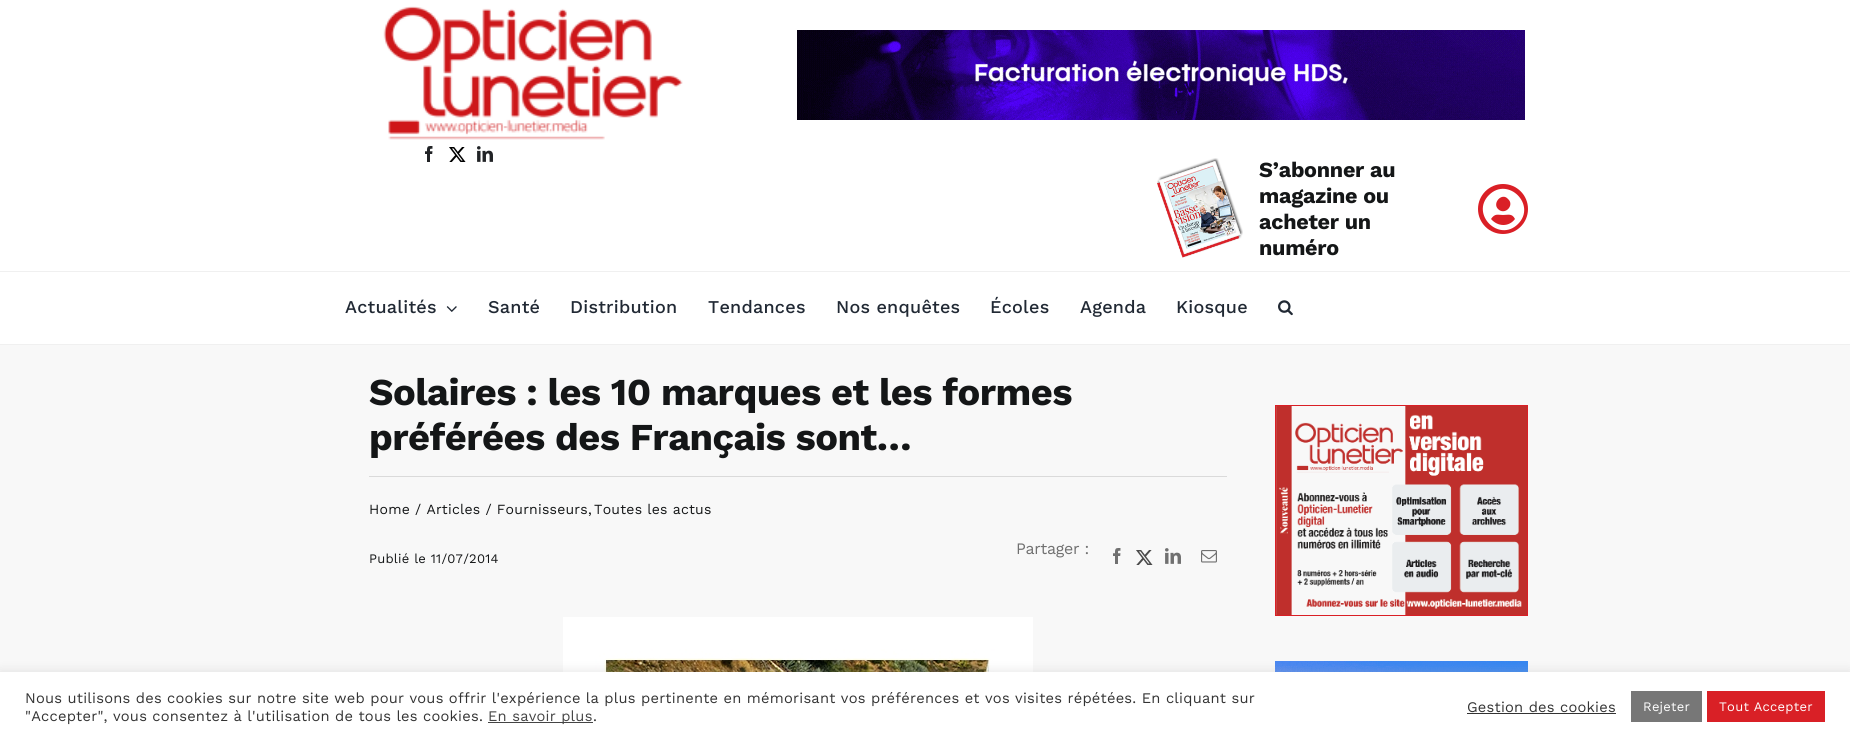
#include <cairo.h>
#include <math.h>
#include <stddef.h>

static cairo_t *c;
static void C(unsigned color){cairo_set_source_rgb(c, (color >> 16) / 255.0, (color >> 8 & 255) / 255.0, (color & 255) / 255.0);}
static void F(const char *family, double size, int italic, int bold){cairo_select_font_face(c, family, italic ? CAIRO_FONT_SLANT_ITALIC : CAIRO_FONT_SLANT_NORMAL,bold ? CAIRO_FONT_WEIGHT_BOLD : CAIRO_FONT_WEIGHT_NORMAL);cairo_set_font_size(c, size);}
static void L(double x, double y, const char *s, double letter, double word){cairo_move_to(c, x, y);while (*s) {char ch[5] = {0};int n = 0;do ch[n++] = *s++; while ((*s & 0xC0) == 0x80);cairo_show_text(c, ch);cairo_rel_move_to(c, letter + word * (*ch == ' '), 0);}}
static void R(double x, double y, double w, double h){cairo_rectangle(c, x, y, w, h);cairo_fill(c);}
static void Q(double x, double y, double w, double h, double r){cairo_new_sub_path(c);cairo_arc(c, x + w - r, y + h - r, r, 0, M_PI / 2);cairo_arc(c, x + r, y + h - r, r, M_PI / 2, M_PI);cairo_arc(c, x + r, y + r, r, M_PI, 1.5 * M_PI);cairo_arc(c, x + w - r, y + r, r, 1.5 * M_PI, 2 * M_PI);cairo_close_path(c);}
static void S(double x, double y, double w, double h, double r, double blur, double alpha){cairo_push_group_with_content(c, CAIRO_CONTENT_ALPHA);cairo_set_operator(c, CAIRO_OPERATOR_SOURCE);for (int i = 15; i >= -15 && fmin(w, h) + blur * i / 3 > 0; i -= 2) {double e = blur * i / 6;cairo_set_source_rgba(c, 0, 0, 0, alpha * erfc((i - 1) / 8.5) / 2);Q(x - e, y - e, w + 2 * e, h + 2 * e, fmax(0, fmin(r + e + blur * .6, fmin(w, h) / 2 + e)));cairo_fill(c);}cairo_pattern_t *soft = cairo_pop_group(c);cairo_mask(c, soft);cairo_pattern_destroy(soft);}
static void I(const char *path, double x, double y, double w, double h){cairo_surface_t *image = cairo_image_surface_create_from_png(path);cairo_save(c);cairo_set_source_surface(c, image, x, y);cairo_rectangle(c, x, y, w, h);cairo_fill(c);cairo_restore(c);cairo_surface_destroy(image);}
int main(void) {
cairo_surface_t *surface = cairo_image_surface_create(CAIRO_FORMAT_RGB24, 1850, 741);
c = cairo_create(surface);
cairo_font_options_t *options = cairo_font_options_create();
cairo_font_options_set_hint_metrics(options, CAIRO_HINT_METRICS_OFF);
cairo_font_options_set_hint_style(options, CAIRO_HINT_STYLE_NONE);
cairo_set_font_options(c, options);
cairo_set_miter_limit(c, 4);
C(0xf8f8f8);
cairo_paint(c);
C(0xffffff);
R(0,0,1850,271);
I("1.png",383,6,300,134);
I("2.png",425,146,8,16);
I("3.png",449,147,17,15);
I("4.png",477,146,16,16);
I("5.png",797,30,728,90);
I("6.png",1157,158,86,100);
F("Work Sans",21.5,0,1);
C(0x141617);
L(1259,177,"S’abonner au",-.25,0);
L(1259,203,"magazine ou",-.25,0);
L(1259,229,"acheter un",-.25,0);
L(1259,255,"numéro",-.25,0);
C(0xda1f26);
cairo_new_path(c);
cairo_arc(c,1503,209,25,0,2 * M_PI);
cairo_fill(c);
C(0xffffff);
cairo_new_path(c);
cairo_move_to(c,1489,195);
cairo_curve_to(c,1508,176,1537,205,1518,224);
cairo_curve_to(c,1499,243,1470,214,1489,195);
cairo_close_path(c);
cairo_move_to(c,1508,199);
cairo_curve_to(c,1502,192,1492,203,1498,209);
cairo_curve_to(c,1505,216,1515,205,1508,199);
cairo_close_path(c);
cairo_move_to(c,1491,219);
cairo_curve_to(c,1498,227,1509,227,1515,219);
cairo_curve_to(c,1512,213,1508,215,1503,215);
cairo_curve_to(c,1498,215,1495,213,1491,219);
cairo_close_path(c);
cairo_fill(c);
R(0,272,1850,72);
C(0xf0f0f0);
R(0,271,1850,1);
R(0,344,1850,1);
F("Work Sans Medium",18,0,0);
C(0x212934);
L(345,313,"Actualités",.25,0);
I("7.png",446,306,11,6);
L(488,313,"Santé",.25,0);
L(570,313,"Distribution",.25,0);
L(708,313,"Tendances",.25,0);
L(836,313,"Nos enquêtes",.25,0);
L(990,313,"Écoles",.25,0);
L(1080,313,"Agenda",.25,0);
L(1176,313,"Kiosque",.25,0);
I("8.png",1278,300,15,16);
F("Work Sans",38,0,1);
C(0x141617);
L(369,405,"Solaires : les 10 marques et les formes",-.55,0);
L(369,450,"préférées des Français sont…",-.55,0);
C(0xdadada);
R(369,476,858,1);
F("Work Sans",14,0,0);
C(0x141617);
L(369,514,"Home / Articles / Fournisseurs,",.24,0);
L(594,514,"Toutes les actus",.24,0);
F("Work Sans",13,0,0);
L(369,563,"Publié le 11/07/2014",.24,0);
F("Work Sans",16,0,0);
C(0x707070);
L(1016,554,"Partager :",-.25,0);
I("9.png",1113,548,8,16);
I("10.png",1136,550,17,15);
I("11.png",1165,548,16,16);
I("12.png",1201,550,16,13);
I("13.png",563,617,470,55);
cairo_rectangle(c,1275.5,405.5,252,210);
C(0xda1f26);
cairo_set_line_width(c,1);
cairo_stroke(c);
I("14.png",1276,406,251,209);
I("15.png",1275,661,253,11);
C(0xacabab);
S(0,671,1850,69,0,5,.3);
C(0xffffff);
R(0,672,1850,69);
F("Work Sans",14.67,0,0);
C(0x333333);
L(25,703,"Nous utilisons des cookies sur notre site web pour vous offrir l'expérience la plus pertinente en mémorisant vos préférences et vos visites répétées. En cliquant sur",.24,0);
L(25,721,"\"Accepter\", vous consentez à l'utilisation de tous les cookies.",.24,0);
C(0x444444);
R(488,722,105,1);
L(488,721,"En savoir plus",.24,0);
C(0x333333);
L(593,721,".",.24,0);
L(1467,712,"Gestion des cookies",.24,0);
R(1467,713,149,1);
C(0x777777);
R(1631,691,71,31);
F("Work Sans",13,0,0);
C(0xffffff);
L(1643,711,"Rejeter",.24,0);
C(0xd92026);
R(1707,691,118,31);
C(0xffffff);
L(1719,711,"Tout Accepter",.24,0);
cairo_surface_write_to_png(surface, "o.png");
cairo_font_options_destroy(options);
cairo_destroy(c);
cairo_surface_destroy(surface);
return 0;
}
